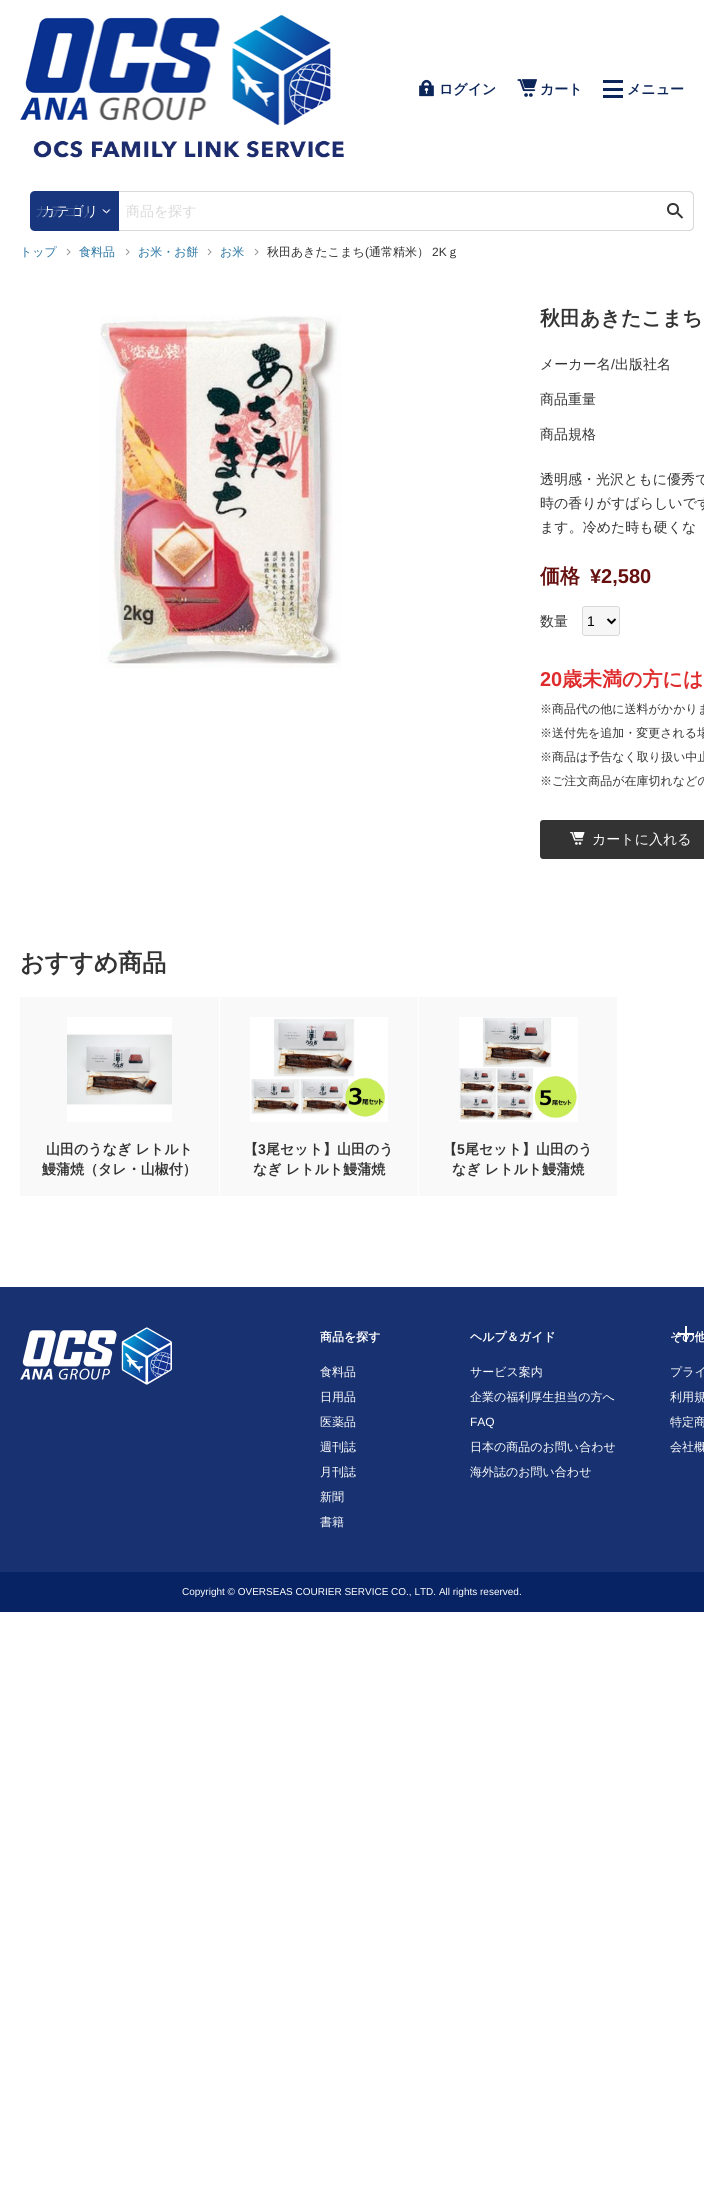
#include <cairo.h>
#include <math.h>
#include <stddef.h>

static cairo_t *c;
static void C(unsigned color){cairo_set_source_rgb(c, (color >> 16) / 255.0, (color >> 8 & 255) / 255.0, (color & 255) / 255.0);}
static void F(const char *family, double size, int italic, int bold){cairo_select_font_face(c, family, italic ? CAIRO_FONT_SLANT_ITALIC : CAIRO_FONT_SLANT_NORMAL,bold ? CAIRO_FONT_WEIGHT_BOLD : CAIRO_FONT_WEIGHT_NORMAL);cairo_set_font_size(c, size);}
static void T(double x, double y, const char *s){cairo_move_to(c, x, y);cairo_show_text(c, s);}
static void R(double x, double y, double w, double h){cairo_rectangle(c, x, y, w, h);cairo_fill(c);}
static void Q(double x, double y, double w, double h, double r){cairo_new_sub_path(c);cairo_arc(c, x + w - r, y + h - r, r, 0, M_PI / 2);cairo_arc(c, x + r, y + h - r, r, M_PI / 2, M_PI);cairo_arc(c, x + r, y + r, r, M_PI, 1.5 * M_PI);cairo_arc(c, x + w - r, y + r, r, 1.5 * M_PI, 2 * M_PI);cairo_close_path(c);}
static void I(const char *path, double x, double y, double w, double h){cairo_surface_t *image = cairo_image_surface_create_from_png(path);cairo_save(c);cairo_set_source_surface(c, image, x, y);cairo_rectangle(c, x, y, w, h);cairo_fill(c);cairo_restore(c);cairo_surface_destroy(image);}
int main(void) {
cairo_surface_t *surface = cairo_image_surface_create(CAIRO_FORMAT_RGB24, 704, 2188);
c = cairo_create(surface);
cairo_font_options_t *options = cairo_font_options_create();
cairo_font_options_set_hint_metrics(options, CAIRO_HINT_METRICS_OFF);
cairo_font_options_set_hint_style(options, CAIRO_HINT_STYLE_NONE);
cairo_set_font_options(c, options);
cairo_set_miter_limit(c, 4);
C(0xffffff);
cairo_paint(c);
I("1.png",20,15,311,111);
I("2.png",33,140,311,18);
I("3.png",419,79,15,18);
F("WenQuanYi Zen Hei",14,0,1);
C(0x0d265a);
T(439,94,"ログイン");
I("4.png",517,79,20,18);
T(540,94,"カート");
R(603,80,20,3);
R(603,88,20,3);
R(603,95,20,3);
T(627,94,"メニュー");
C(0x18367d);
cairo_new_path(c);
cairo_move_to(c,35,191);
cairo_line_to(c,119,191);
cairo_line_to(c,119,231);
cairo_line_to(c,35,231);
cairo_curve_to(c,32,231,30,229,30,226);
cairo_line_to(c,30,196);
cairo_curve_to(c,30,193,32,191,35,191);
cairo_close_path(c);
cairo_fill(c);
F("WenQuanYi Zen Hei Medium",14,0,0);
C(0xffffff);
T(41,216,"カテゴリ");
C(0x445d96);
T(35,216,"カテゴリ");
C(0xffffff);
cairo_new_path(c);
cairo_move_to(c,110.5,209.5);
cairo_line_to(c,106.5,213.5);
cairo_line_to(c,106.5,212);
cairo_line_to(c,109,209.5);
cairo_close_path(c);
cairo_fill(c);
cairo_new_path(c);
cairo_move_to(c,106.5,213.5);
cairo_line_to(c,102,209.5);
cairo_line_to(c,103.5,209.5);
cairo_line_to(c,106.5,212);
cairo_close_path(c);
cairo_fill(c);
C(0xd9d9d9);
R(119,191,539,1);
R(119,230,539,1);
T(126,216,"商品を探す");
cairo_set_fill_rule(c,CAIRO_FILL_RULE_EVEN_ODD);
cairo_new_path(c);
cairo_move_to(c,658,191);
cairo_line_to(c,689,191);
cairo_curve_to(c,692,191,694,193,694,196);
cairo_line_to(c,694,226);
cairo_curve_to(c,694,229,692,231,689,231);
cairo_line_to(c,658,231);
cairo_close_path(c);
cairo_move_to(c,658,192);
cairo_line_to(c,689,192);
cairo_curve_to(c,691,192,693,194,693,196);
cairo_line_to(c,693,226);
cairo_curve_to(c,693,228,691,230,689,230);
cairo_line_to(c,658,230);
cairo_close_path(c);
cairo_fill(c);
cairo_arc(c,673,209,5,0,2 * M_PI);
C(0x343434);
cairo_stroke(c);
cairo_new_path(c);
cairo_move_to(c,677.5,213);
cairo_line_to(c,682.5,218);
cairo_stroke(c);
F("WenQuanYi Zen Hei Medium",12,0,0);
C(0x2873a1);
T(20,256,"トップ");
cairo_new_path(c);
cairo_move_to(c,67,249);
cairo_line_to(c,70,252);
cairo_line_to(c,67,255);
C(0x979797);
cairo_set_line_width(c,1);
cairo_stroke(c);
C(0x2873a1);
T(79,256,"食料品");
cairo_new_path(c);
cairo_move_to(c,126,249);
cairo_line_to(c,129,252);
cairo_line_to(c,126,255);
C(0x979797);
cairo_stroke(c);
C(0x2873a1);
T(138,256,"お米・お餅");
cairo_new_path(c);
cairo_move_to(c,208,249);
cairo_line_to(c,211,252);
cairo_line_to(c,208,255);
C(0x979797);
cairo_stroke(c);
C(0x2873a1);
T(220,256,"お米");
cairo_new_path(c);
cairo_move_to(c,255,249);
cairo_line_to(c,258,252);
cairo_line_to(c,255,255);
C(0x979797);
cairo_stroke(c);
C(0x333333);
T(267,256,"秋田あきたこまち");
F("Liberation Sans",12,0,0);
T(365,256,"(");
F("WenQuanYi Zen Hei Medium",12,0,0);
T(369,256,"通常精米）");
F("Liberation Sans",12,0,0);
T(432,256,"2K");
F("WenQuanYi Zen Hei Medium",12,0,0);
T(447,256,"ｇ");
I("5.png",100,315,241,353);
F("WenQuanYi Zen Hei",20,0,1);
T(540,325,"秋田あきたこまち");
F("WenQuanYi Zen Hei Medium",14,0,0);
T(540,369,"メーカー名");
F("Liberation Sans",14,0,0);
T(611,369,"/");
F("WenQuanYi Zen Hei Medium",14,0,0);
T(615,369,"出版社名");
T(540,404,"商品重量");
T(540,439,"商品規格");
T(540,484,"透明感・光沢ともに優秀で");
T(540,508,"時の香りがすばらしいです");
T(540,532,"ます。冷めた時も硬くな");
F("WenQuanYi Zen Hei",20,0,1);
C(0x661010);
T(540,583,"価格");
F("Liberation Sans",20,0,1);
T(590,583,"¥2,580");
F("WenQuanYi Zen Hei Medium",14,0,0);
C(0x333333);
T(540,626,"数量");
C(0xf6f6f6);
Q(582.5,606.5,37,29,2.5);
cairo_fill_preserve(c);
C(0xd9d9d9);
cairo_stroke(c);
cairo_new_path(c);
cairo_move_to(c,607.5,619);
cairo_line_to(c,611.5,623);
cairo_line_to(c,615.5,619);
C(0x000000);
cairo_set_line_width(c,2);
cairo_stroke(c);
F("Liberation Sans",14,0,0);
T(587,626,"1");
F("Liberation Sans",20,0,1);
C(0xdf2b2b);
T(540,686,"20");
F("WenQuanYi Zen Hei",20,0,1);
T(562,686,"歳未満の方には");
F("WenQuanYi Zen Hei Medium",12,0,0);
C(0x333333);
T(540,713,"※商品代の他に送料がかかりま");
T(540,737,"※送付先を追加・変更される場");
T(540,761,"※商品は予告なく取り扱い中止");
T(540,785,"※ご注文商品が在庫切れなどの");
Q(540,820,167,39,3);
cairo_fill(c);
I("6.png",570,832,15,13);
F("WenQuanYi Zen Hei Medium",14,0,0);
C(0xffffff);
T(592,844,"カートに入れる");
F("WenQuanYi Zen Hei",24,0,1);
C(0x333333);
T(20,971,"おすすめ商品");
C(0xf9f9f9);
R(20,997,199,199);
I("7.png",67,1017,105,105);
F("WenQuanYi Zen Hei",14,0,1);
C(0x333333);
T(46,1154,"山田のうなぎ レトルト");
T(42,1174,"鰻蒲焼（タレ・山椒付）");
C(0xf9f9f9);
R(220,997,198,199);
I("8.png",250,1017,138,105);
C(0x333333);
T(244,1154,"【");
F("Liberation Sans",14,0,1);
T(258,1154,"3");
F("WenQuanYi Zen Hei",14,0,1);
T(266,1154,"尾セット】山田のう");
T(253,1174,"なぎ レトルト鰻蒲焼");
C(0xf9f9f9);
R(419,997,198,199);
I("9.png",459,1017,119,105);
C(0x333333);
T(443,1154,"【");
F("Liberation Sans",14,0,1);
T(457,1154,"5");
F("WenQuanYi Zen Hei",14,0,1);
T(465,1154,"尾セット】山田のう");
T(452,1174,"なぎ レトルト鰻蒲焼");
C(0x183271);
R(0,1287,704,285);
I("10.png",20,1327,152,58);
F("WenQuanYi Zen Hei",12,0,1);
C(0xffffff);
T(320,1341,"商品を探す");
R(678,1333,16,2);
R(685,1326,2,16);
F("WenQuanYi Zen Hei Medium",12,0,0);
T(320,1376,"食料品");
T(320,1401,"日用品");
T(320,1426,"医薬品");
T(320,1451,"週刊誌");
T(320,1476,"月刊誌");
T(320,1501,"新聞");
T(320,1526,"書籍");
F("WenQuanYi Zen Hei",12,0,1);
T(470,1341,"ヘルプ＆ガイド");
F("WenQuanYi Zen Hei Medium",12,0,0);
T(470,1376,"サービス案内");
T(470,1401,"企業の福利厚生担当の方へ");
F("Liberation Sans",12,0,0);
T(470,1426,"FAQ");
F("WenQuanYi Zen Hei Medium",12,0,0);
T(470,1451,"日本の商品のお問い合わせ");
T(470,1476,"海外誌のお問い合わせ");
F("WenQuanYi Zen Hei",12,0,1);
T(670,1341,"その他");
F("WenQuanYi Zen Hei Medium",12,0,0);
T(670,1376,"プライ");
T(670,1401,"利用規");
T(670,1426,"特定商");
T(670,1451,"会社概");
C(0x082364);
R(0,1572,704,40);
F("Liberation Sans",10,0,0);
C(0xffffff);
T(182,1595,"Copyright © OVERSEAS COURIER SERVICE CO., LTD. All rights reserved.");
cairo_surface_write_to_png(surface, "o.png");
cairo_font_options_destroy(options);
cairo_destroy(c);
cairo_surface_destroy(surface);
return 0;
}
